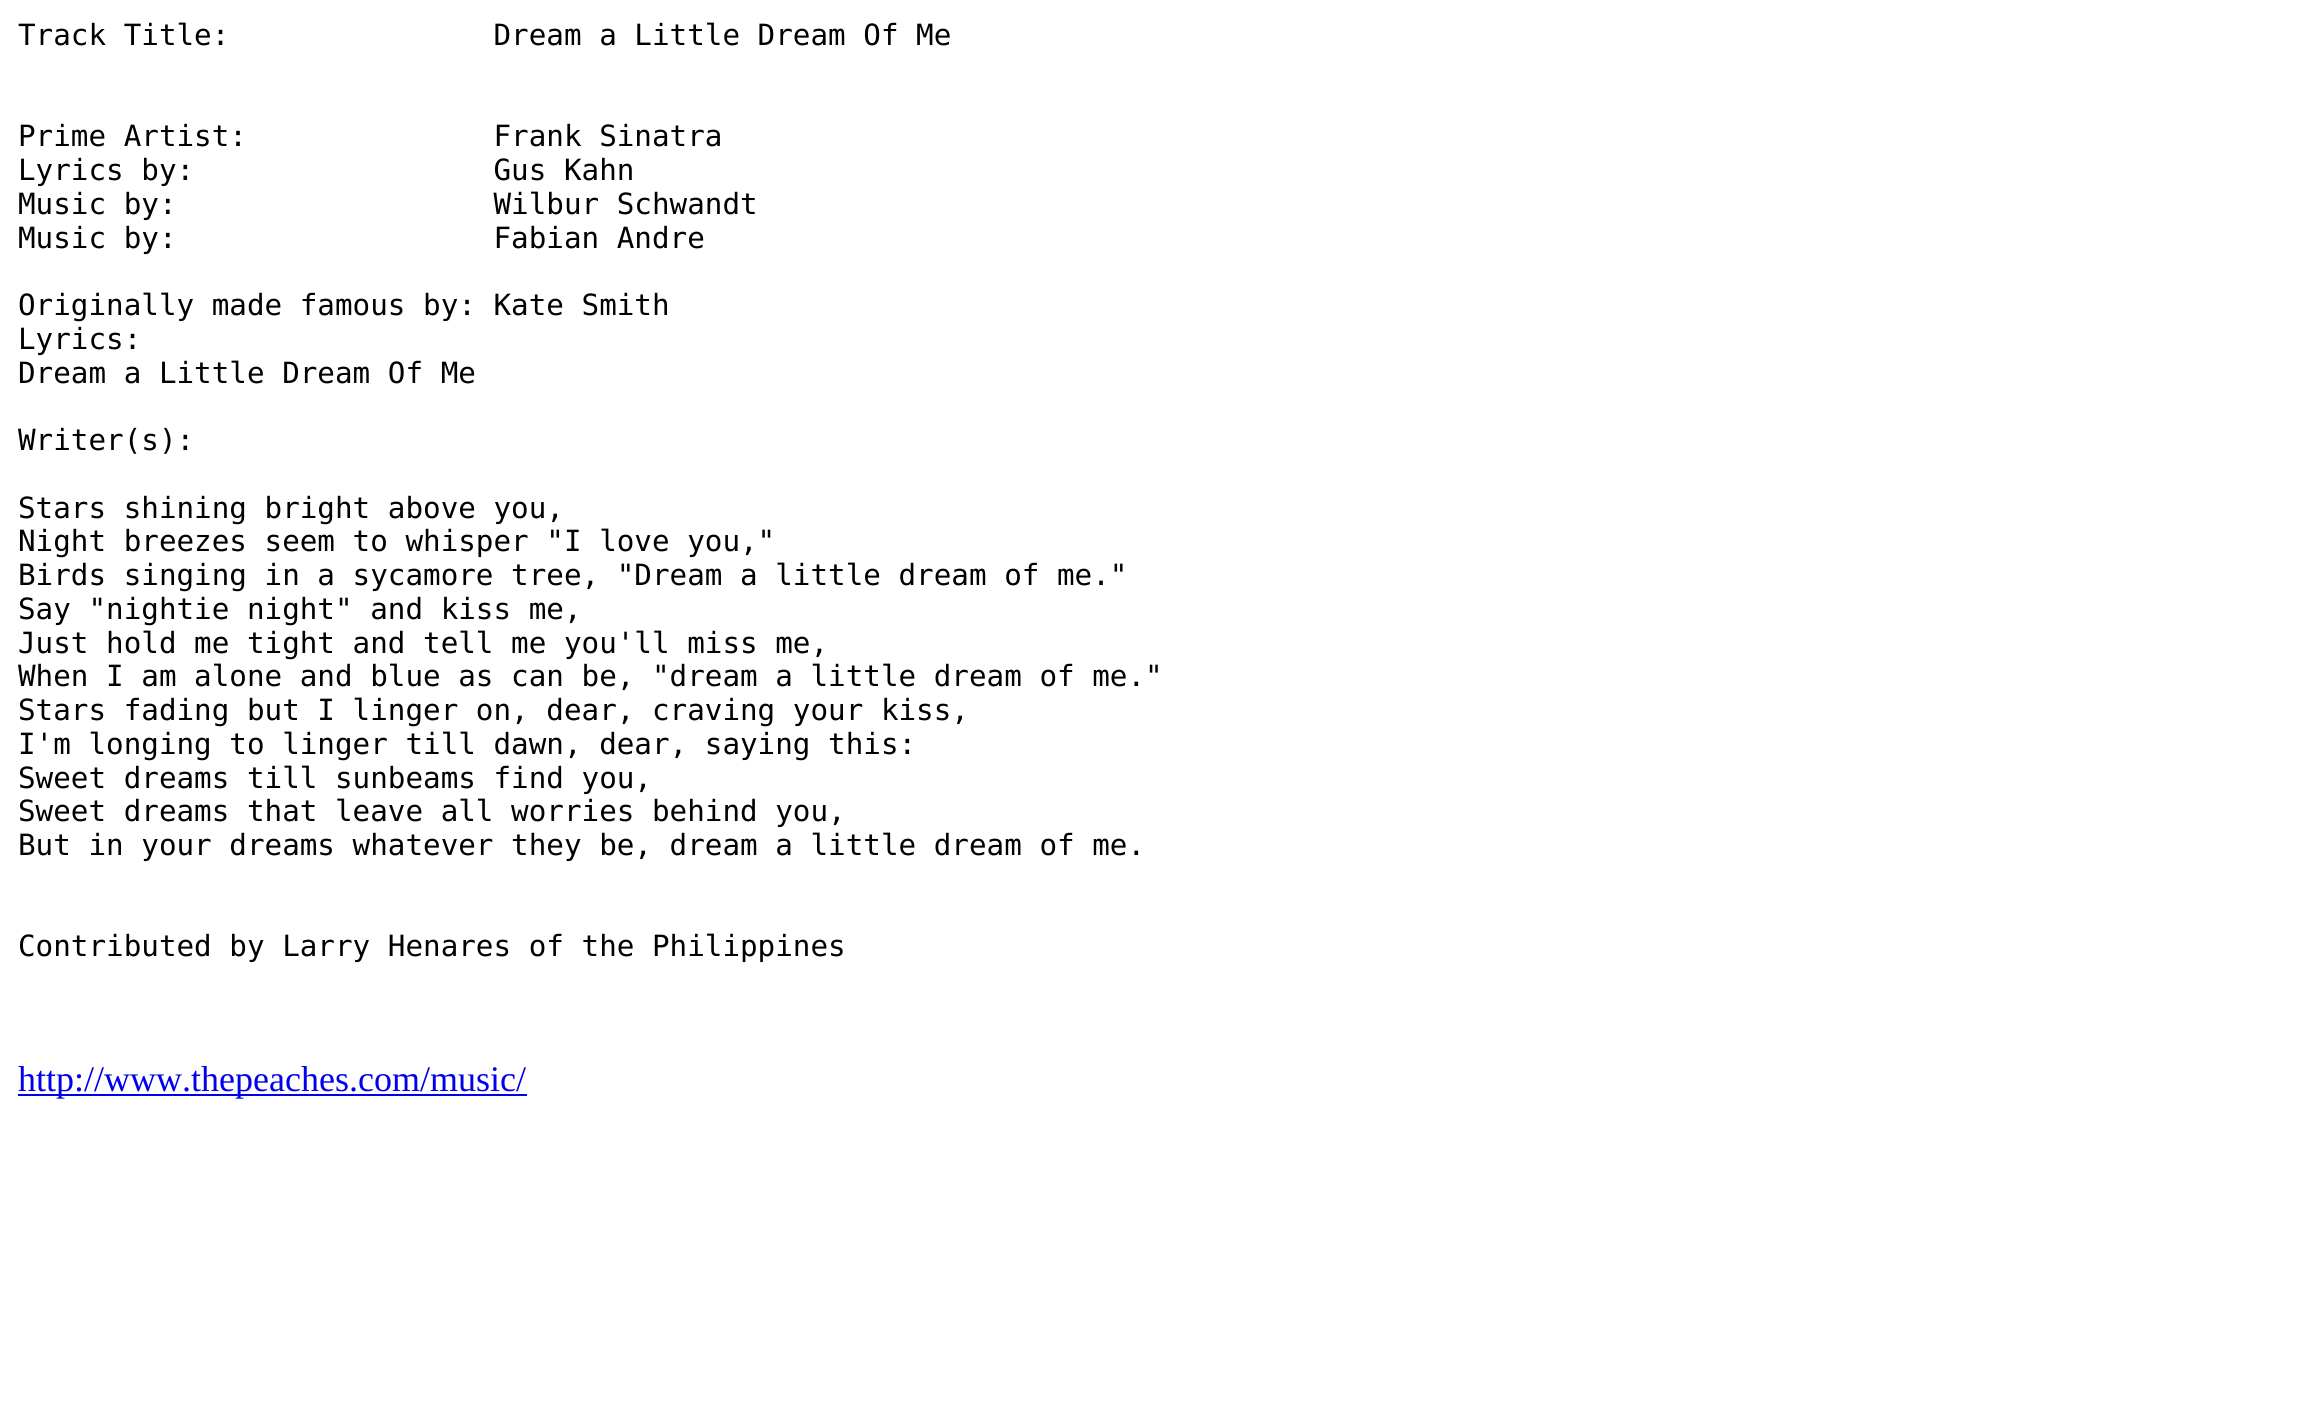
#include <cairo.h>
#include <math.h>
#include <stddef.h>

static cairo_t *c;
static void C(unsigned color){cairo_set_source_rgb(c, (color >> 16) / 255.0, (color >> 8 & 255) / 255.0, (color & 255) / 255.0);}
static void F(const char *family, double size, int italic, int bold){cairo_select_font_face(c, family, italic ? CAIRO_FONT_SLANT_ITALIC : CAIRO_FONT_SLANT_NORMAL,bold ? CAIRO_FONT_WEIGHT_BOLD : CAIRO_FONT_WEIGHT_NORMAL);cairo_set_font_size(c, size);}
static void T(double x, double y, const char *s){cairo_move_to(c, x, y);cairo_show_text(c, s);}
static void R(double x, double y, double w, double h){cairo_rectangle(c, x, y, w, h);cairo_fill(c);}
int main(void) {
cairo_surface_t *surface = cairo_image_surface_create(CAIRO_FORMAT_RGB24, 2324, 1415);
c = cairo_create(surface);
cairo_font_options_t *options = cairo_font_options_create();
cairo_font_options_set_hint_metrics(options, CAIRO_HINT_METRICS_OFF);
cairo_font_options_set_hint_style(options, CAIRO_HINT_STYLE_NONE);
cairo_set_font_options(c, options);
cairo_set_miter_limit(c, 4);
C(0xffffff);
cairo_paint(c);
F("DejaVu Sans Mono",29.25,0,0);
C(0x000000);
T(18,45,"Track Title:               Dream a Little Dream Of Me");
T(18,146,"Prime Artist:              Frank Sinatra");
T(18,180,"Lyrics by:                 Gus Kahn");
T(18,214,"Music by:                  Wilbur Schwandt");
T(18,248,"Music by:                  Fabian Andre");
T(18,315,"Originally made famous by: Kate Smith");
T(18,349,"Lyrics:");
T(18,383,"Dream a Little Dream Of Me");
T(18,450,"Writer(s):");
T(18,518,"Stars shining bright above you,");
T(18,551,"Night breezes seem to whisper \"I love you,\"");
T(18,585,"Birds singing in a sycamore tree, \"Dream a little dream of me.\"");
T(18,619,"Say \"nightie night\" and kiss me,");
T(18,653,"Just hold me tight and tell me you'll miss me,");
T(18,686,"When I am alone and blue as can be, \"dream a little dream of me.\"");
T(18,720,"Stars fading but I linger on, dear, craving your kiss,");
T(18,754,"I'm longing to linger till dawn, dear, saying this:");
T(18,788,"Sweet dreams till sunbeams find you,");
T(18,821,"Sweet dreams that leave all worries behind you,");
T(18,855,"But in your dreams whatever they be, dream a little dream of me.");
T(18,956,"Contributed by Larry Henares of the Philippines");
C(0x0000ee);
R(18,1094,509,2);
F("Liberation Serif",36,0,0);
T(18,1091,"http://www.thepeaches.com/music/");
cairo_surface_write_to_png(surface, "o.png");
cairo_font_options_destroy(options);
cairo_destroy(c);
cairo_surface_destroy(surface);
return 0;
}
